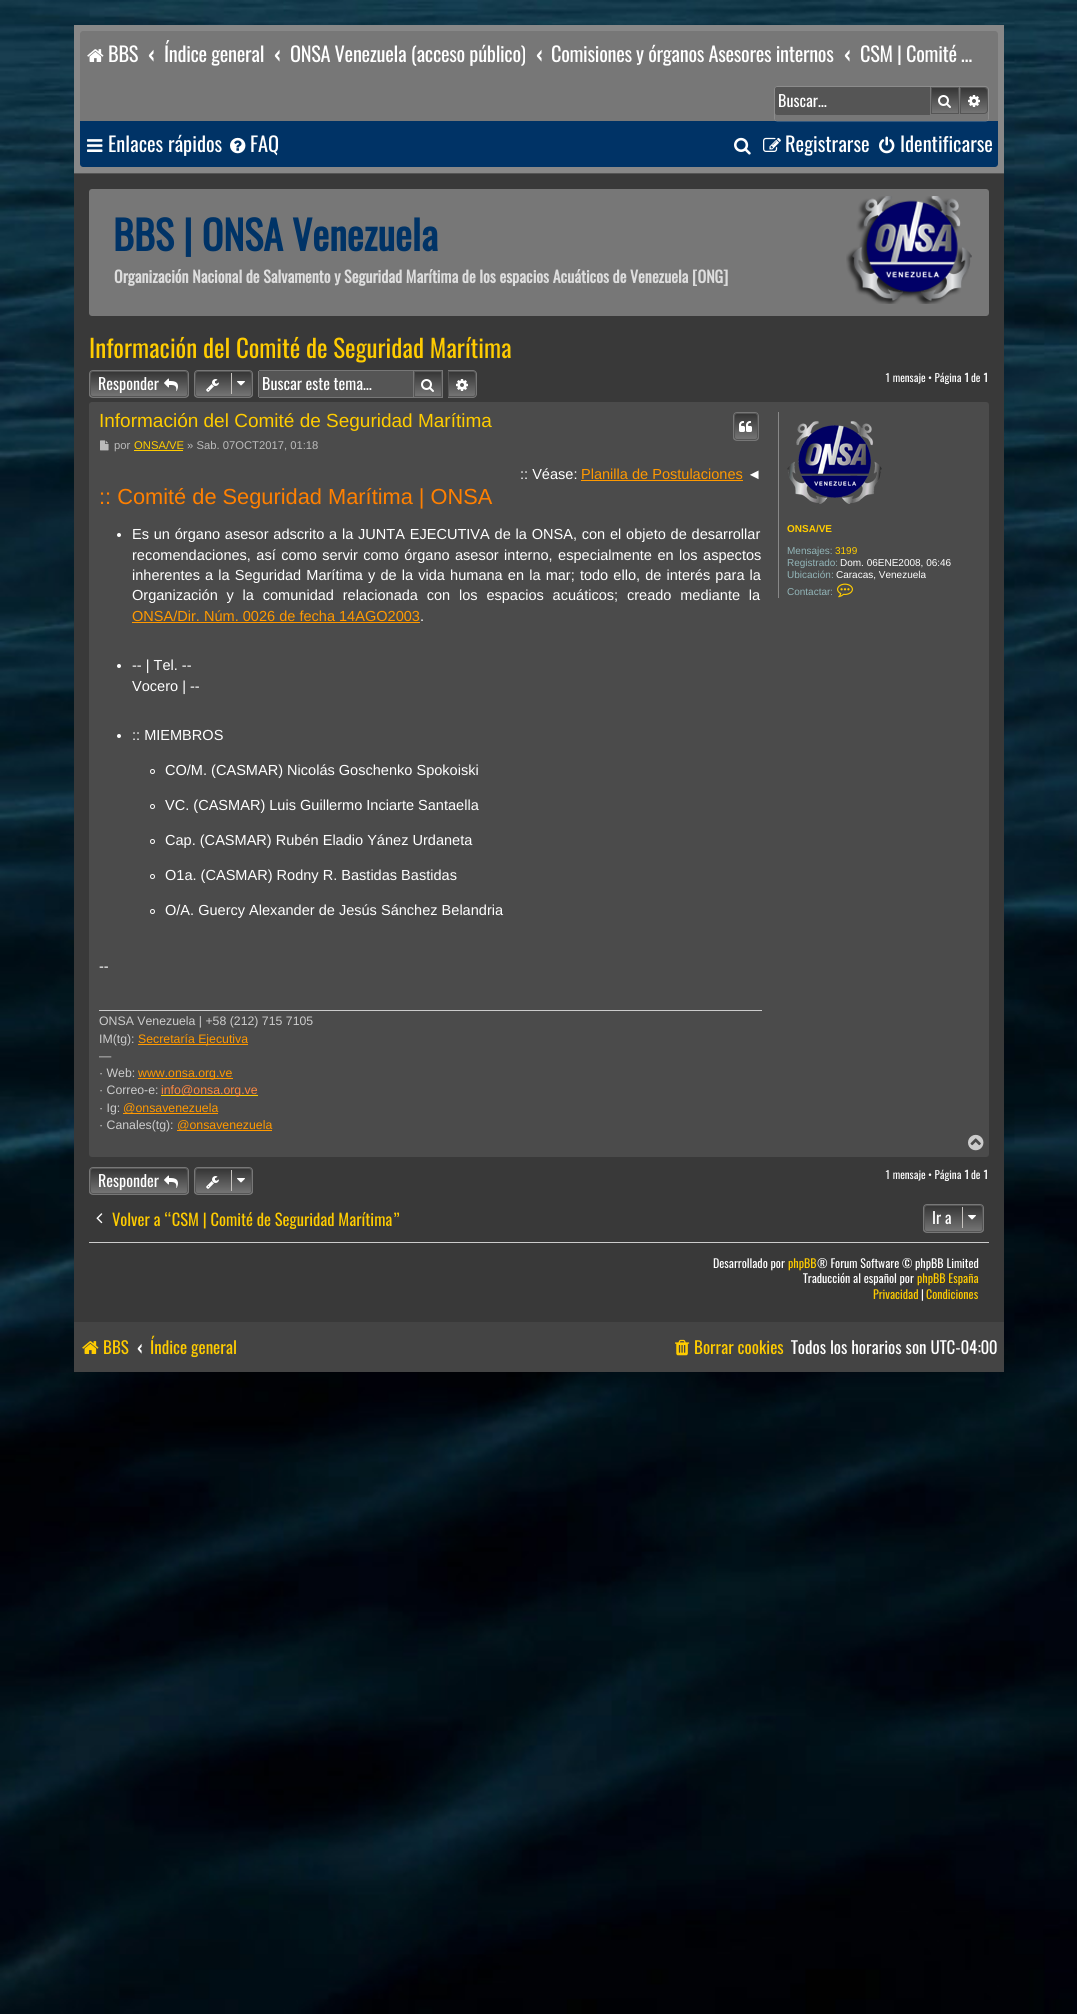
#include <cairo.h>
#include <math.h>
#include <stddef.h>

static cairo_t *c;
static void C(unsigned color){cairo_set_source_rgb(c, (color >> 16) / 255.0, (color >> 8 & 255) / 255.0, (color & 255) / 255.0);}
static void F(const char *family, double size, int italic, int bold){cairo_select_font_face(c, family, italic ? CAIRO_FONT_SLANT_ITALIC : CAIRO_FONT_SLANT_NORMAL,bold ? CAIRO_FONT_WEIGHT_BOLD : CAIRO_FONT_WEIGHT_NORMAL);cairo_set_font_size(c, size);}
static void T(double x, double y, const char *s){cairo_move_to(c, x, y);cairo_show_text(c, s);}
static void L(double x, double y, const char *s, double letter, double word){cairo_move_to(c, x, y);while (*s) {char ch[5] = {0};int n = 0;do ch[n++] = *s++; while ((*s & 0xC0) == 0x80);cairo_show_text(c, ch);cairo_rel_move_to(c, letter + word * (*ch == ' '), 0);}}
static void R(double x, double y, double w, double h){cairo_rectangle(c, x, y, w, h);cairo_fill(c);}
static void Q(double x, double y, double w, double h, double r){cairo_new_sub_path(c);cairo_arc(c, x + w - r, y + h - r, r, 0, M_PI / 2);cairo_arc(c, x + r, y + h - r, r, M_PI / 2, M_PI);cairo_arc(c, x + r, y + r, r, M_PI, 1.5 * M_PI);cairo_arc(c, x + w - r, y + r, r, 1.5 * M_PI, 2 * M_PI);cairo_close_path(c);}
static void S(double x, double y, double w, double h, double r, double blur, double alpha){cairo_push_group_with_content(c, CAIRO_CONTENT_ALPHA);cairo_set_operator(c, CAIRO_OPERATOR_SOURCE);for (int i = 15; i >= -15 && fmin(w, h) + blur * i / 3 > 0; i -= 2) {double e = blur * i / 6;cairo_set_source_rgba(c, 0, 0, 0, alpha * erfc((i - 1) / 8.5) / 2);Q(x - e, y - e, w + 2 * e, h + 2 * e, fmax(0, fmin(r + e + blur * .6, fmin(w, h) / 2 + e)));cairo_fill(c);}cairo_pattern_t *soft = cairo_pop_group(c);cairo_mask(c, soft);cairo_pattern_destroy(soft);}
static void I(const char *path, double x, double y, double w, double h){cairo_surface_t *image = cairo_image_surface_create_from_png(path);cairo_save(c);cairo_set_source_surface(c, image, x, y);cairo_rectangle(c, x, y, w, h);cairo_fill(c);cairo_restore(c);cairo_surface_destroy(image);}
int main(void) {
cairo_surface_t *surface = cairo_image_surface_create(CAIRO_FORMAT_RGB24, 1077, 2014);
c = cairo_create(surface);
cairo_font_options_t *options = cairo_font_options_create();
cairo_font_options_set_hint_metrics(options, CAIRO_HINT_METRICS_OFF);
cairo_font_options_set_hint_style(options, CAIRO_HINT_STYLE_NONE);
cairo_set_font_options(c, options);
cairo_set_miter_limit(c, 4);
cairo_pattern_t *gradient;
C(0xffffff);
cairo_paint(c);
I("1.png",0,1369,1077,645);
I("2.png",0,0,1077,1369);
C(0x888888);
R(74,25,930,148);
C(0x777777);
cairo_new_path(c);
cairo_move_to(c,83,31);
cairo_line_to(c,995,31);
cairo_curve_to(c,996.5,31,998,32.5,998,34);
cairo_line_to(c,998,121);
cairo_line_to(c,80,121);
cairo_line_to(c,80,34);
cairo_curve_to(c,80,32.5,81.5,31,83,31);
cairo_close_path(c);
cairo_fill(c);
I("3.png",87,49,17,13);
F("Oswald",20.4,0,0);
C(0xffffff);
L(108,62,"BBS",-.3,0);
F("Oswald",20.4,0,1);
T(148,62,"‹");
F("Oswald",20.4,0,0);
L(164,62,"Índice general",-.3,0);
F("Oswald",20.4,0,1);
T(274,62,"‹");
cairo_save(c);
cairo_rectangle(c,290,32,235,45);
cairo_clip(c);
F("Oswald",20.4,0,0);
L(290,62,"ONSA Venezuela (acceso público)",-.3,0);
cairo_restore(c);
T(536,62,"‹");
F("Oswald",20.4,0,0);
L(551,62,"Comisiones y órganos Asesores internos",-.3,0);
F("Oswald",20.4,0,1);
T(844,62,"‹");
F("Oswald",20.4,0,0);
L(860,62,"CSM | Comité …",-.3,0);
C(0x003366);
cairo_new_path(c);
cairo_move_to(c,80,121);
cairo_line_to(c,998,121);
cairo_line_to(c,998,164);
cairo_curve_to(c,998,165.5,996.5,167,995,167);
cairo_line_to(c,83,167);
cairo_curve_to(c,81.5,167,80,165.5,80,164);
cairo_close_path(c);
cairo_fill(c);
cairo_save(c);
cairo_set_fill_rule(c,CAIRO_FILL_RULE_EVEN_ODD);
cairo_new_path(c);
cairo_move_to(c,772,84);
cairo_line_to(c,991,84);
cairo_line_to(c,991,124);
cairo_line_to(c,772,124);
cairo_close_path(c);
cairo_move_to(c,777,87);
cairo_line_to(c,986,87);
cairo_curve_to(c,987,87,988,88,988,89);
cairo_line_to(c,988,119);
cairo_curve_to(c,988,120,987,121,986,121);
cairo_line_to(c,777,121);
cairo_curve_to(c,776,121,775,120,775,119);
cairo_line_to(c,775,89);
cairo_curve_to(c,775,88,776,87,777,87);
cairo_close_path(c);
cairo_clip(c);
C(0xcccccc);
S(775,87,213,34,2,.5,1);
cairo_restore(c);
C(0x555555);
cairo_new_path(c);
cairo_move_to(c,777,87);
cairo_line_to(c,930,87);
cairo_line_to(c,930,115);
cairo_line_to(c,777,115);
cairo_curve_to(c,776,115,775,114,775,113);
cairo_line_to(c,775,89);
cairo_curve_to(c,775,88,776,87,777,87);
cairo_close_path(c);
cairo_fill(c);
F("Oswald",16,0,0);
C(0xffffff);
T(778,107,"Buscar…");
gradient = cairo_pattern_create_linear(945,87,945,114);
cairo_pattern_add_color_stop_rgba(gradient,0,0.2,0.2,0.2,1);
cairo_pattern_add_color_stop_rgba(gradient,1,0.467,0.467,0.467,1);
cairo_set_source(c,gradient);
cairo_pattern_destroy(gradient);
R(932,88,26,25);
cairo_rectangle(c,931.5,87.5,27,26);
C(0x555555);
cairo_set_line_width(c,1);
cairo_stroke(c);
I("4.png",938,95,13,13);
gradient = cairo_pattern_create_linear(974,87,974,114);
cairo_pattern_add_color_stop_rgba(gradient,0,0.2,0.2,0.2,1);
cairo_pattern_add_color_stop_rgba(gradient,1,0.467,0.467,0.467,1);
cairo_set_source(c,gradient);
cairo_pattern_destroy(gradient);
cairo_new_path(c);
cairo_move_to(c,960.5,87.5);
cairo_line_to(c,984,87.5);
cairo_curve_to(c,986,87.5,987.5,89,987.5,91);
cairo_line_to(c,987.5,110);
cairo_curve_to(c,987.5,112,986,113.5,984,113.5);
cairo_line_to(c,960.5,113.5);
cairo_close_path(c);
cairo_fill_preserve(c);
C(0x555555);
cairo_stroke(c);
I("5.png",968,95,12,12);
I("6.png",87,139,16,13);
F("Oswald",20.4,0,0);
C(0xffffff);
T(108,152,"Enlaces rápidos");
I("7.png",230,137,16,17);
T(250,152,"FAQ");
I("8.png",734,137,17,18);
I("9.png",763,137,18,15);
T(785,152,"Registrarse");
I("10.png",879,136,16,18);
T(900,152,"Identificarse");
C(0x393939);
R(74,174,930,1148);
C(0x555555);
R(74,173,930,1);
C(0x777777);
Q(89,189,900,127,3);
cairo_fill(c);
F("Oswald",40,0,1);
C(0x003366);
T(113,251,"BBS | ONSA Venezuela");
F("Oswald",16,0,1);
C(0xdddddd);
T(114,283,"Organización Nacional de Salvamento y Seguridad Marítima de los espacios Acuáticos de Venezuela [ONG]");
I("11.png",846,196,126,108);
F("Oswald",25,0,0);
C(0xffcc00);
T(89,358,"Información del Comité de Seguridad Marítima");
cairo_save(c);
Q(89,370,100,28,4);
cairo_clip(c);
gradient = cairo_pattern_create_linear(139,371,139,397);
cairo_pattern_add_color_stop_rgba(gradient,0,0.2,0.2,0.2,1);
cairo_pattern_add_color_stop_rgba(gradient,1,0.467,0.467,0.467,1);
cairo_set_source(c,gradient);
cairo_pattern_destroy(gradient);
R(89,371,100,26);
cairo_restore(c);
Q(90.5,371.5,97,25,2.5);
C(0x555555);
cairo_stroke(c);
Q(89.5,370.5,99,27,3.5);
C(0x777777);
cairo_stroke(c);
F("Oswald",16,0,0);
C(0xffffff);
T(98,390,"Responder");
I("12.png",164,378,14,13);
cairo_save(c);
Q(194,370,59,28,4);
cairo_clip(c);
gradient = cairo_pattern_create_linear(224,371,224,397);
cairo_pattern_add_color_stop_rgba(gradient,0,0.2,0.2,0.2,1);
cairo_pattern_add_color_stop_rgba(gradient,1,0.467,0.467,0.467,1);
cairo_set_source(c,gradient);
cairo_pattern_destroy(gradient);
R(194,371,59,26);
cairo_restore(c);
Q(195.5,371.5,56,25,2.5);
C(0x555555);
cairo_stroke(c);
Q(194.5,370.5,58,27,3.5);
C(0x777777);
cairo_stroke(c);
I("13.png",206,379,13,13);
C(0xc7c3bf);
R(231,373,1,21);
I("14.png",237,381,8,5);
C(0x555555);
cairo_new_path(c);
cairo_move_to(c,260,371);
cairo_line_to(c,413,371);
cairo_line_to(c,413,397);
cairo_line_to(c,260,397);
cairo_curve_to(c,259.5,397,259,396.5,259,396);
cairo_line_to(c,259,372);
cairo_curve_to(c,259,371.5,259.5,371,260,371);
cairo_close_path(c);
cairo_fill(c);
C(0x777777);
R(259,370,154,1);
R(259,397,154,1);
R(258,371,1,26);
C(0xffffff);
T(262,390,"Buscar este tema…");
gradient = cairo_pattern_create_linear(428,371,428,397);
cairo_pattern_add_color_stop_rgba(gradient,0,0.2,0.2,0.2,1);
cairo_pattern_add_color_stop_rgba(gradient,1,0.467,0.467,0.467,1);
cairo_set_source(c,gradient);
cairo_pattern_destroy(gradient);
R(415,374,26,22);
cairo_rectangle(c,414.5,371.5,27,25);
C(0x555555);
cairo_stroke(c);
cairo_rectangle(c,413.5,370.5,29,27);
C(0x777777);
cairo_stroke(c);
I("15.png",421,379,13,13);
gradient = cairo_pattern_create_linear(462,371,462,397);
cairo_pattern_add_color_stop_rgba(gradient,0,0.2,0.2,0.2,1);
cairo_pattern_add_color_stop_rgba(gradient,1,0.467,0.467,0.467,1);
cairo_set_source(c,gradient);
cairo_pattern_destroy(gradient);
cairo_new_path(c);
cairo_move_to(c,448.5,371.5);
cairo_line_to(c,473,371.5);
cairo_curve_to(c,474.5,371.5,475.5,372.5,475.5,374);
cairo_line_to(c,475.5,394);
cairo_curve_to(c,475.5,395.5,474.5,396.5,473,396.5);
cairo_line_to(c,448.5,396.5);
cairo_close_path(c);
cairo_fill_preserve(c);
C(0x555555);
cairo_stroke(c);
C(0x777777);
cairo_set_fill_rule(c,CAIRO_FILL_RULE_EVEN_ODD);
cairo_new_path(c);
cairo_move_to(c,448,370);
cairo_line_to(c,473,370);
cairo_curve_to(c,475,370,477,372,477,374);
cairo_line_to(c,477,394);
cairo_curve_to(c,477,396,475,398,473,398);
cairo_line_to(c,448,398);
cairo_close_path(c);
cairo_move_to(c,448,371);
cairo_line_to(c,473,371);
cairo_curve_to(c,474.5,371,476,372.5,476,374);
cairo_line_to(c,476,394);
cairo_curve_to(c,476,395.5,474.5,397,473,397);
cairo_line_to(c,448,397);
cairo_close_path(c);
cairo_fill(c);
I("16.png",456,379,12,12);
F("Oswald",11,0,0);
C(0xffffff);
T(885,382,"1 mensaje • Página");
F("Oswald",11,0,1);
T(964,382,"1");
F("Oswald",11,0,0);
T(971,382,"de");
F("Oswald",11,0,1);
T(983,382,"1");
C(0x4b4b4b);
Q(89,402,900,755,3);
cairo_fill(c);
F("Liberation Sans",19,0,0);
C(0xffcc00);
T(99,427,"Información del Comité de Seguridad Marítima");
cairo_save(c);
cairo_set_fill_rule(c,CAIRO_FILL_RULE_WINDING);
Q(733,412,26,29,4);
cairo_clip(c);
gradient = cairo_pattern_create_linear(746,413,746,440);
cairo_pattern_add_color_stop_rgba(gradient,0,0.2,0.2,0.2,1);
cairo_pattern_add_color_stop_rgba(gradient,1,0.467,0.467,0.467,1);
cairo_set_source(c,gradient);
cairo_pattern_destroy(gradient);
R(733,413,26,27);
cairo_restore(c);
Q(734.5,413.5,23,26,2.5);
C(0x555555);
cairo_stroke(c);
Q(733.5,412.5,25,28,3.5);
C(0x777777);
cairo_stroke(c);
I("17.png",739,421,13,11);
I("18.png",100,440,9,11);
F("Liberation Sans",11.25,0,0);
C(0xbbbbbb);
T(114,449,"por");
C(0xffcc00);
T(134,449,"ONSA/VE");
R(134,450,49,1);
C(0xbbbbbb);
T(187,449,"» Sab. 07OCT2017, 01:18");
F("Liberation Sans",14.55,0,0);
C(0xffffff);
T(520,479,":: Véase:");
C(0xff9900);
T(581,479,"Planilla de Postulaciones");
R(581,480,162,1);
C(0xffffff);
T(747,479,"◄");
F("Liberation Sans",21.8,0,0);
C(0xff8000);
T(99,504,":: Comité de Seguridad Marítima | ONSA");
C(0xffffff);
cairo_new_path(c);
cairo_arc(c,119,535,2,0,2 * M_PI);
cairo_fill(c);
F("Liberation Sans",14.55,0,0);
L(132,539,"Es un órgano asesor adscrito a la JUNTA EJECUTIVA de la ONSA, con el objeto de desarrollar",0,.75);
L(132,560,"recomendaciones, así como servir como órgano asesor interno, especialmente en los aspectos",0,1.4);
L(132,580,"inherentes a la Seguridad Marítima y de la vida humana en la mar; todo ello, de interés para la",0,1.1);
L(132,600,"Organización y la comunidad relacionada con los espacios acuáticos; creado mediante la",0,4.75);
C(0xff9900);
T(132,621,"ONSA/Dir. Núm. 0026 de fecha 14AGO2003");
R(132,622,288,1);
C(0xffffff);
T(420,621,".");
cairo_new_path(c);
cairo_arc(c,119,666,2,0,2 * M_PI);
cairo_fill(c);
T(132,670,"-- | Tel. --");
T(132,691,"Vocero | --");
cairo_new_path(c);
cairo_arc(c,119,736,2,0,2 * M_PI);
cairo_fill(c);
T(132,740,":: MIEMBROS");
cairo_new_path(c);
cairo_arc(c,152.5,771.5,2,0,2 * M_PI);
cairo_stroke(c);
T(165,775,"CO/M. (CASMAR) Nicolás Goschenko Spokoiski");
cairo_new_path(c);
cairo_arc(c,152.5,806.5,2,0,2 * M_PI);
cairo_stroke(c);
T(165,810,"VC. (CASMAR) Luis Guillermo Inciarte Santaella");
cairo_new_path(c);
cairo_arc(c,152.5,841.5,2,0,2 * M_PI);
cairo_stroke(c);
T(165,845,"Cap. (CASMAR) Rubén Eladio Yánez Urdaneta");
cairo_new_path(c);
cairo_arc(c,152.5,876.5,2,0,2 * M_PI);
cairo_stroke(c);
T(165,880,"O1a. (CASMAR) Rodny R. Bastidas Bastidas");
cairo_new_path(c);
cairo_arc(c,152.5,911.5,2,0,2 * M_PI);
cairo_stroke(c);
T(165,915,"O/A. Guercy Alexander de Jesús Sánchez Belandria");
T(99,971,"--");
C(0xcccccc);
R(99,1010,663,1);
F("Liberation Sans",12.3,0,0);
T(99,1025,"ONSA Venezuela | +58 (212) 715 7105");
T(99,1043,"IM(tg):");
C(0xff9900);
R(138,1044,110,1);
T(138,1043,"Secretaría Ejecutiva");
C(0xcccccc);
T(99,1060,"—");
T(99,1077,"· Web:");
C(0xff9900);
R(138,1078,95,1);
T(138,1077,"www.onsa.org.ve");
C(0xcccccc);
T(99,1094,"· Correo-e:");
C(0xffcc00);
R(161,1095,97,1);
C(0xff8840);
T(161,1094,"info@onsa.org.ve");
C(0xcccccc);
T(99,1112,"· Ig:");
C(0xff9900);
R(123,1113,95,1);
T(123,1112,"@onsavenezuela");
C(0xcccccc);
T(99,1129,"· Canales(tg):");
C(0xff9900);
R(177,1130,95,1);
T(177,1129,"@onsavenezuela");
C(0x888888);
R(778,412,1,186);
I("19.png",787,421,95,83);
F("Liberation Sans",10,0,1);
C(0xffcc00);
T(787,532,"ONSA/VE");
F("Liberation Sans",10,0,0);
C(0x92b5b8);
T(787,554,"Mensajes:");
C(0xffcc00);
T(835,554,"3199");
C(0x92b5b8);
T(787,566,"Registrado:");
C(0xffffff);
T(840,566,"Dom. 06ENE2008, 06:46");
C(0x92b5b8);
T(787,578,"Ubicación:");
C(0xffffff);
T(836,578,"Caracas, Venezuela");
C(0x92b5b8);
T(787,595,"Contactar:");
I("20.png",837,583,16,15);
I("21.png",968,1134,16,17);
cairo_save(c);
cairo_set_fill_rule(c,CAIRO_FILL_RULE_WINDING);
Q(89,1167,100,28,4);
cairo_clip(c);
gradient = cairo_pattern_create_linear(139,1168,139,1194);
cairo_pattern_add_color_stop_rgba(gradient,0,0.2,0.2,0.2,1);
cairo_pattern_add_color_stop_rgba(gradient,1,0.467,0.467,0.467,1);
cairo_set_source(c,gradient);
cairo_pattern_destroy(gradient);
R(89,1168,100,26);
cairo_restore(c);
Q(90.5,1168.5,97,25,2.5);
C(0x555555);
cairo_stroke(c);
Q(89.5,1167.5,99,27,3.5);
C(0x777777);
cairo_stroke(c);
F("Oswald",16,0,0);
C(0xffffff);
T(98,1187,"Responder");
I("12.png",164,1175,14,13);
cairo_save(c);
cairo_set_fill_rule(c,CAIRO_FILL_RULE_WINDING);
Q(194,1167,59,28,4);
cairo_clip(c);
gradient = cairo_pattern_create_linear(224,1168,224,1194);
cairo_pattern_add_color_stop_rgba(gradient,0,0.2,0.2,0.2,1);
cairo_pattern_add_color_stop_rgba(gradient,1,0.467,0.467,0.467,1);
cairo_set_source(c,gradient);
cairo_pattern_destroy(gradient);
R(194,1168,59,26);
cairo_restore(c);
Q(195.5,1168.5,56,25,2.5);
C(0x555555);
cairo_stroke(c);
Q(194.5,1167.5,58,27,3.5);
C(0x777777);
cairo_stroke(c);
I("13.png",206,1176,13,13);
C(0xc7c3bf);
R(231,1170,1,21);
I("14.png",237,1178,8,5);
F("Oswald",11,0,0);
C(0xffffff);
T(885,1179,"1 mensaje • Página");
F("Oswald",11,0,1);
T(964,1179,"1");
F("Oswald",11,0,0);
T(971,1179,"de");
F("Oswald",11,0,1);
T(983,1179,"1");
I("22.png",96,1213,7,11);
F("Oswald",16.5,0,0);
C(0xffcc00);
T(112,1226,"Volver a “CSM | Comité de Seguridad Marítima”");
cairo_save(c);
cairo_set_fill_rule(c,CAIRO_FILL_RULE_WINDING);
Q(923,1204,61,29,4);
cairo_clip(c);
gradient = cairo_pattern_create_linear(954,1205,954,1232);
cairo_pattern_add_color_stop_rgba(gradient,0,0.2,0.2,0.2,1);
cairo_pattern_add_color_stop_rgba(gradient,1,0.467,0.467,0.467,1);
cairo_set_source(c,gradient);
cairo_pattern_destroy(gradient);
R(923,1205,61,27);
cairo_restore(c);
Q(924.5,1205.5,58,26,2.5);
C(0x555555);
cairo_stroke(c);
Q(923.5,1204.5,60,28,3.5);
C(0x777777);
cairo_stroke(c);
F("Oswald",16,0,0);
C(0xffffff);
T(932,1224,"Ir a");
C(0xc7c3bf);
R(962,1207,1,21);
I("23.png",968,1215,8,5);
C(0xcccccc);
R(89,1242,900,1);
F("Oswald",12,0,0);
C(0xffffff);
T(713,1268,"Desarrollado por");
C(0xffcc00);
T(788,1268,"phpBB");
C(0xffffff);
T(817,1268,"® Forum Software © phpBB Limited");
T(803,1283,"Traducción al español por");
C(0xffcc00);
T(917,1283,"phpBB España");
T(873,1299,"Privacidad");
C(0xffffff);
T(921,1299,"|");
C(0xffcc00);
T(926,1299,"Condiciones");
C(0x444444);
R(74,1322,930,50);
I("24.png",82,1341,17,13);
F("Oswald",17,0,0);
C(0xffcc00);
T(103,1354,"BBS");
F("Oswald",17,0,1);
C(0xffffff);
T(137,1354,"‹");
F("Oswald",17,0,0);
C(0xffcc00);
T(150,1354,"Índice general");
I("25.png",675,1339,15,17);
T(694,1354,"Borrar cookies");
C(0xffffff);
T(791,1354,"Todos los horarios son UTC-04:00");
cairo_surface_write_to_png(surface, "o.png");
cairo_font_options_destroy(options);
cairo_destroy(c);
cairo_surface_destroy(surface);
return 0;
}
